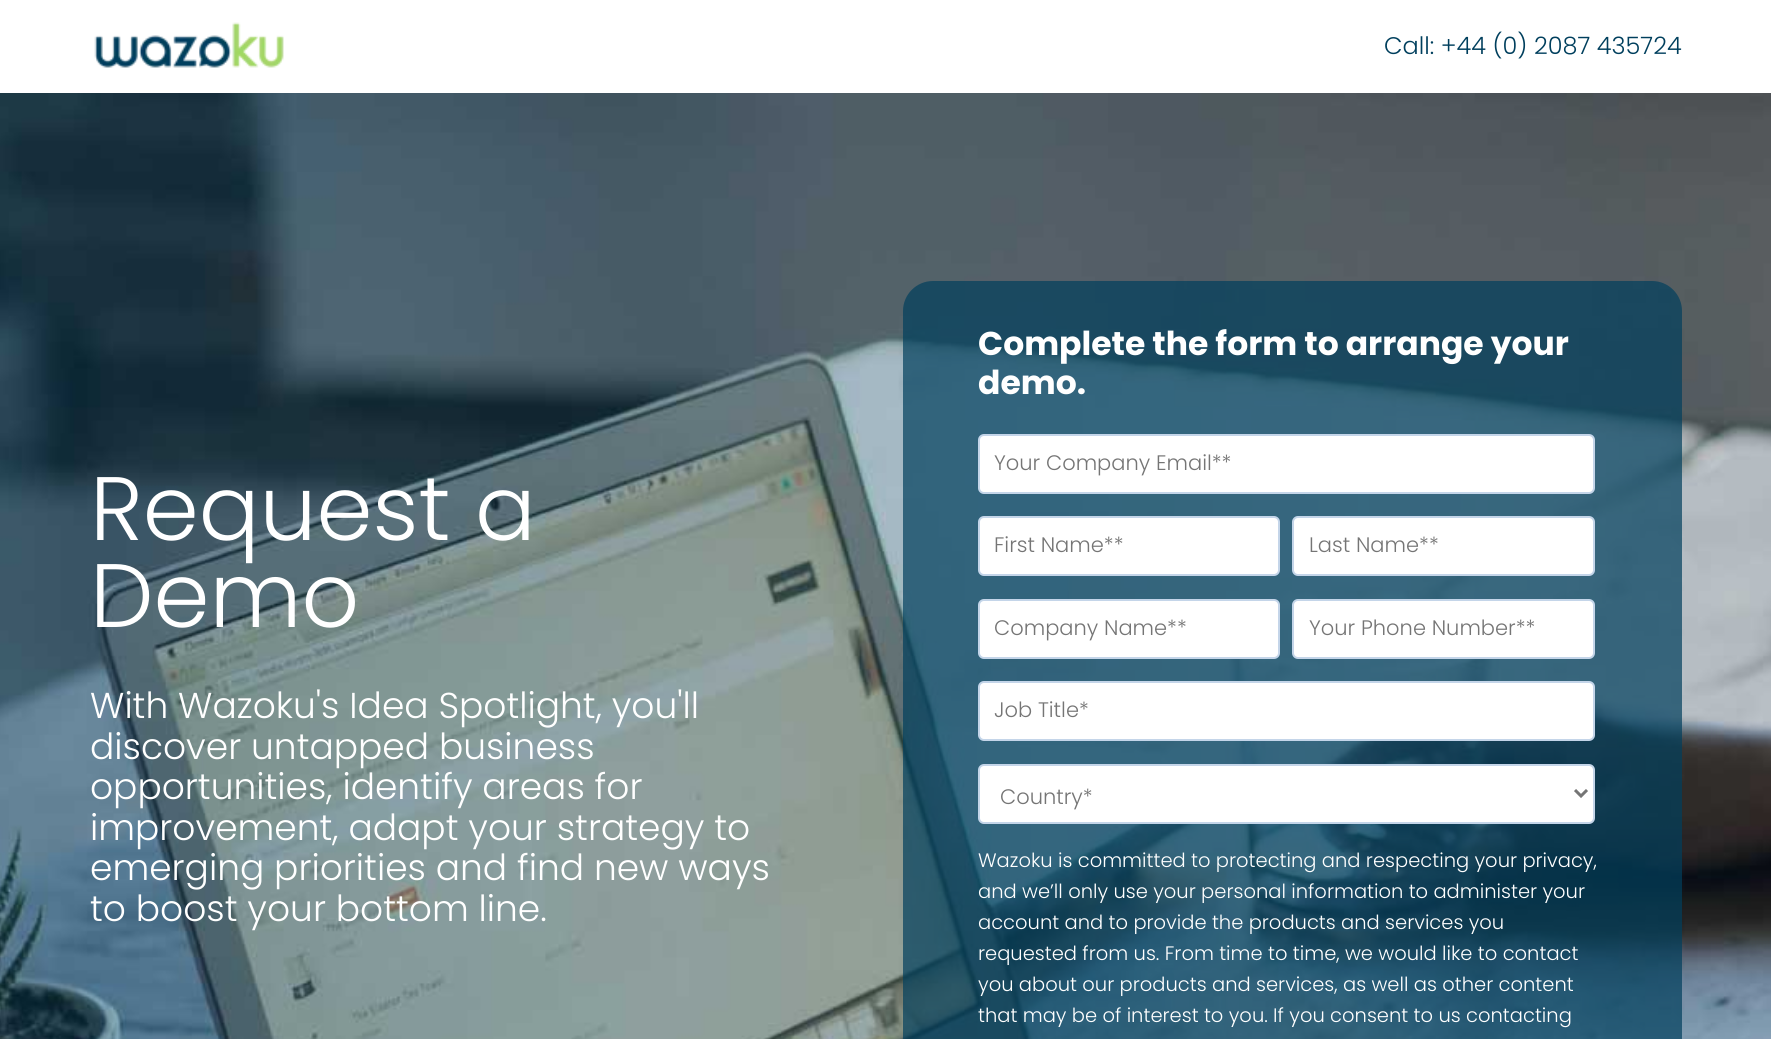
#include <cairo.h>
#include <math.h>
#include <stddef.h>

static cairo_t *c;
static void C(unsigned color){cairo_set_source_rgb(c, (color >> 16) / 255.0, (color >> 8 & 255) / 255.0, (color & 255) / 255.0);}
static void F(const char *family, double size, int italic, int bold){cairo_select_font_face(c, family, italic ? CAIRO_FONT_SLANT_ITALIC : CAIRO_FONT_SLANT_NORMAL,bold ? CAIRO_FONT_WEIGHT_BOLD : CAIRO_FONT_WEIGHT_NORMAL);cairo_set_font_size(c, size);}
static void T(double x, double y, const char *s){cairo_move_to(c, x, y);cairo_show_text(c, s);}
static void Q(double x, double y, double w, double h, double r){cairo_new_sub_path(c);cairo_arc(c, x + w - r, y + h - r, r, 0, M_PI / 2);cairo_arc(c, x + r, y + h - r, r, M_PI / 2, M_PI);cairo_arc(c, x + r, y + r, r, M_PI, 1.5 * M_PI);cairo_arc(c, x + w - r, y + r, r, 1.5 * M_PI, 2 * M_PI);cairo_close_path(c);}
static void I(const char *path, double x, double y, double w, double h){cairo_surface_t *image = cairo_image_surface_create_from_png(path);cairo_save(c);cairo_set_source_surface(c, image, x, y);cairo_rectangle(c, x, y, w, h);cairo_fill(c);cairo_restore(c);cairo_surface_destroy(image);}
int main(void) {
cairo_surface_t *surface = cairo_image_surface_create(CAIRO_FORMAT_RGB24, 1771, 1039);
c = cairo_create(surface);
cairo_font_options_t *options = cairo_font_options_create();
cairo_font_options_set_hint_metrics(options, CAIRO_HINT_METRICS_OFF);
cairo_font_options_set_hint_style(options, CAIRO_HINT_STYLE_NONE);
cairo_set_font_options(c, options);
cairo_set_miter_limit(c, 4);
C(0xffffff);
cairo_paint(c);
I("1.png",94,22,190,46);
F("Poppins Light",24,0,0);
C(0x003f5d);
T(1384,54,"Call: +44 (0) 2087 435724");
I("2.png",0,93,1771,946);
F("Poppins Light",90,0,0);
C(0xffffff);
T(90,540,"Request a");
T(90,627,"Demo");
F("Poppins Light",36,0,0);
T(90,718,"With Wazoku's Idea Spotlight, you'll");
T(90,759,"discover untapped business");
T(90,799,"opportunities, identify areas for");
T(90,840,"improvement, adapt your strategy to");
T(90,880,"emerging priorities and find new ways");
T(90,921,"to boost your bottom line.");
cairo_set_source_rgba(c,0,0.247,0.365,0.7);
Q(903,281,779,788,30);
cairo_fill(c);
F("Poppins",33,0,1);
C(0xffffff);
T(978,355,"Complete the form to arrange your");
T(978,394,"demo.");
Q(979,435,615,58,5);
cairo_fill_preserve(c);
C(0xc4d5e9);
cairo_stroke(c);
F("Poppins Light",21,0,0);
C(0x757575);
T(994,470,"Your Company Email**");
C(0xffffff);
Q(979,517,300,58,5);
cairo_fill_preserve(c);
C(0xc4d5e9);
cairo_stroke(c);
C(0x757575);
T(994,552,"First Name**");
C(0xffffff);
Q(1293,517,301,58,5);
cairo_fill_preserve(c);
C(0xc4d5e9);
cairo_stroke(c);
C(0x757575);
T(1309,552,"Last Name**");
C(0xffffff);
Q(979,600,300,58,5);
cairo_fill_preserve(c);
C(0xc4d5e9);
cairo_stroke(c);
C(0x757575);
T(994,635,"Company Name**");
C(0xffffff);
Q(1293,600,301,58,5);
cairo_fill_preserve(c);
C(0xc4d5e9);
cairo_stroke(c);
C(0x757575);
T(1309,635,"Your Phone Number**");
C(0xffffff);
Q(979,682,615,58,5);
cairo_fill_preserve(c);
C(0xc4d5e9);
cairo_stroke(c);
C(0x757575);
T(994,717,"Job Title*");
C(0xffffff);
Q(979,765,615,58,5);
cairo_fill_preserve(c);
C(0xc4d5e9);
cairo_stroke(c);
cairo_new_path(c);
cairo_move_to(c,1575,790);
cairo_line_to(c,1581,796);
cairo_line_to(c,1587,790);
C(0x757575);
cairo_set_line_width(c,3);
cairo_stroke(c);
T(1000,804,"Country*");
F("Poppins Light",19.5,0,0);
C(0xffffff);
T(978,867,"Wazoku is committed to protecting and respecting your privacy,");
T(978,898,"and we’ll only use your personal information to administer your");
T(978,929,"account and to provide the products and services you");
T(978,960,"requested from us. From time to time, we would like to contact");
T(978,991,"you about our products and services, as well as other content");
T(978,1022,"that may be of interest to you. If you consent to us contacting");
cairo_surface_write_to_png(surface, "o.png");
cairo_font_options_destroy(options);
cairo_destroy(c);
cairo_surface_destroy(surface);
return 0;
}
